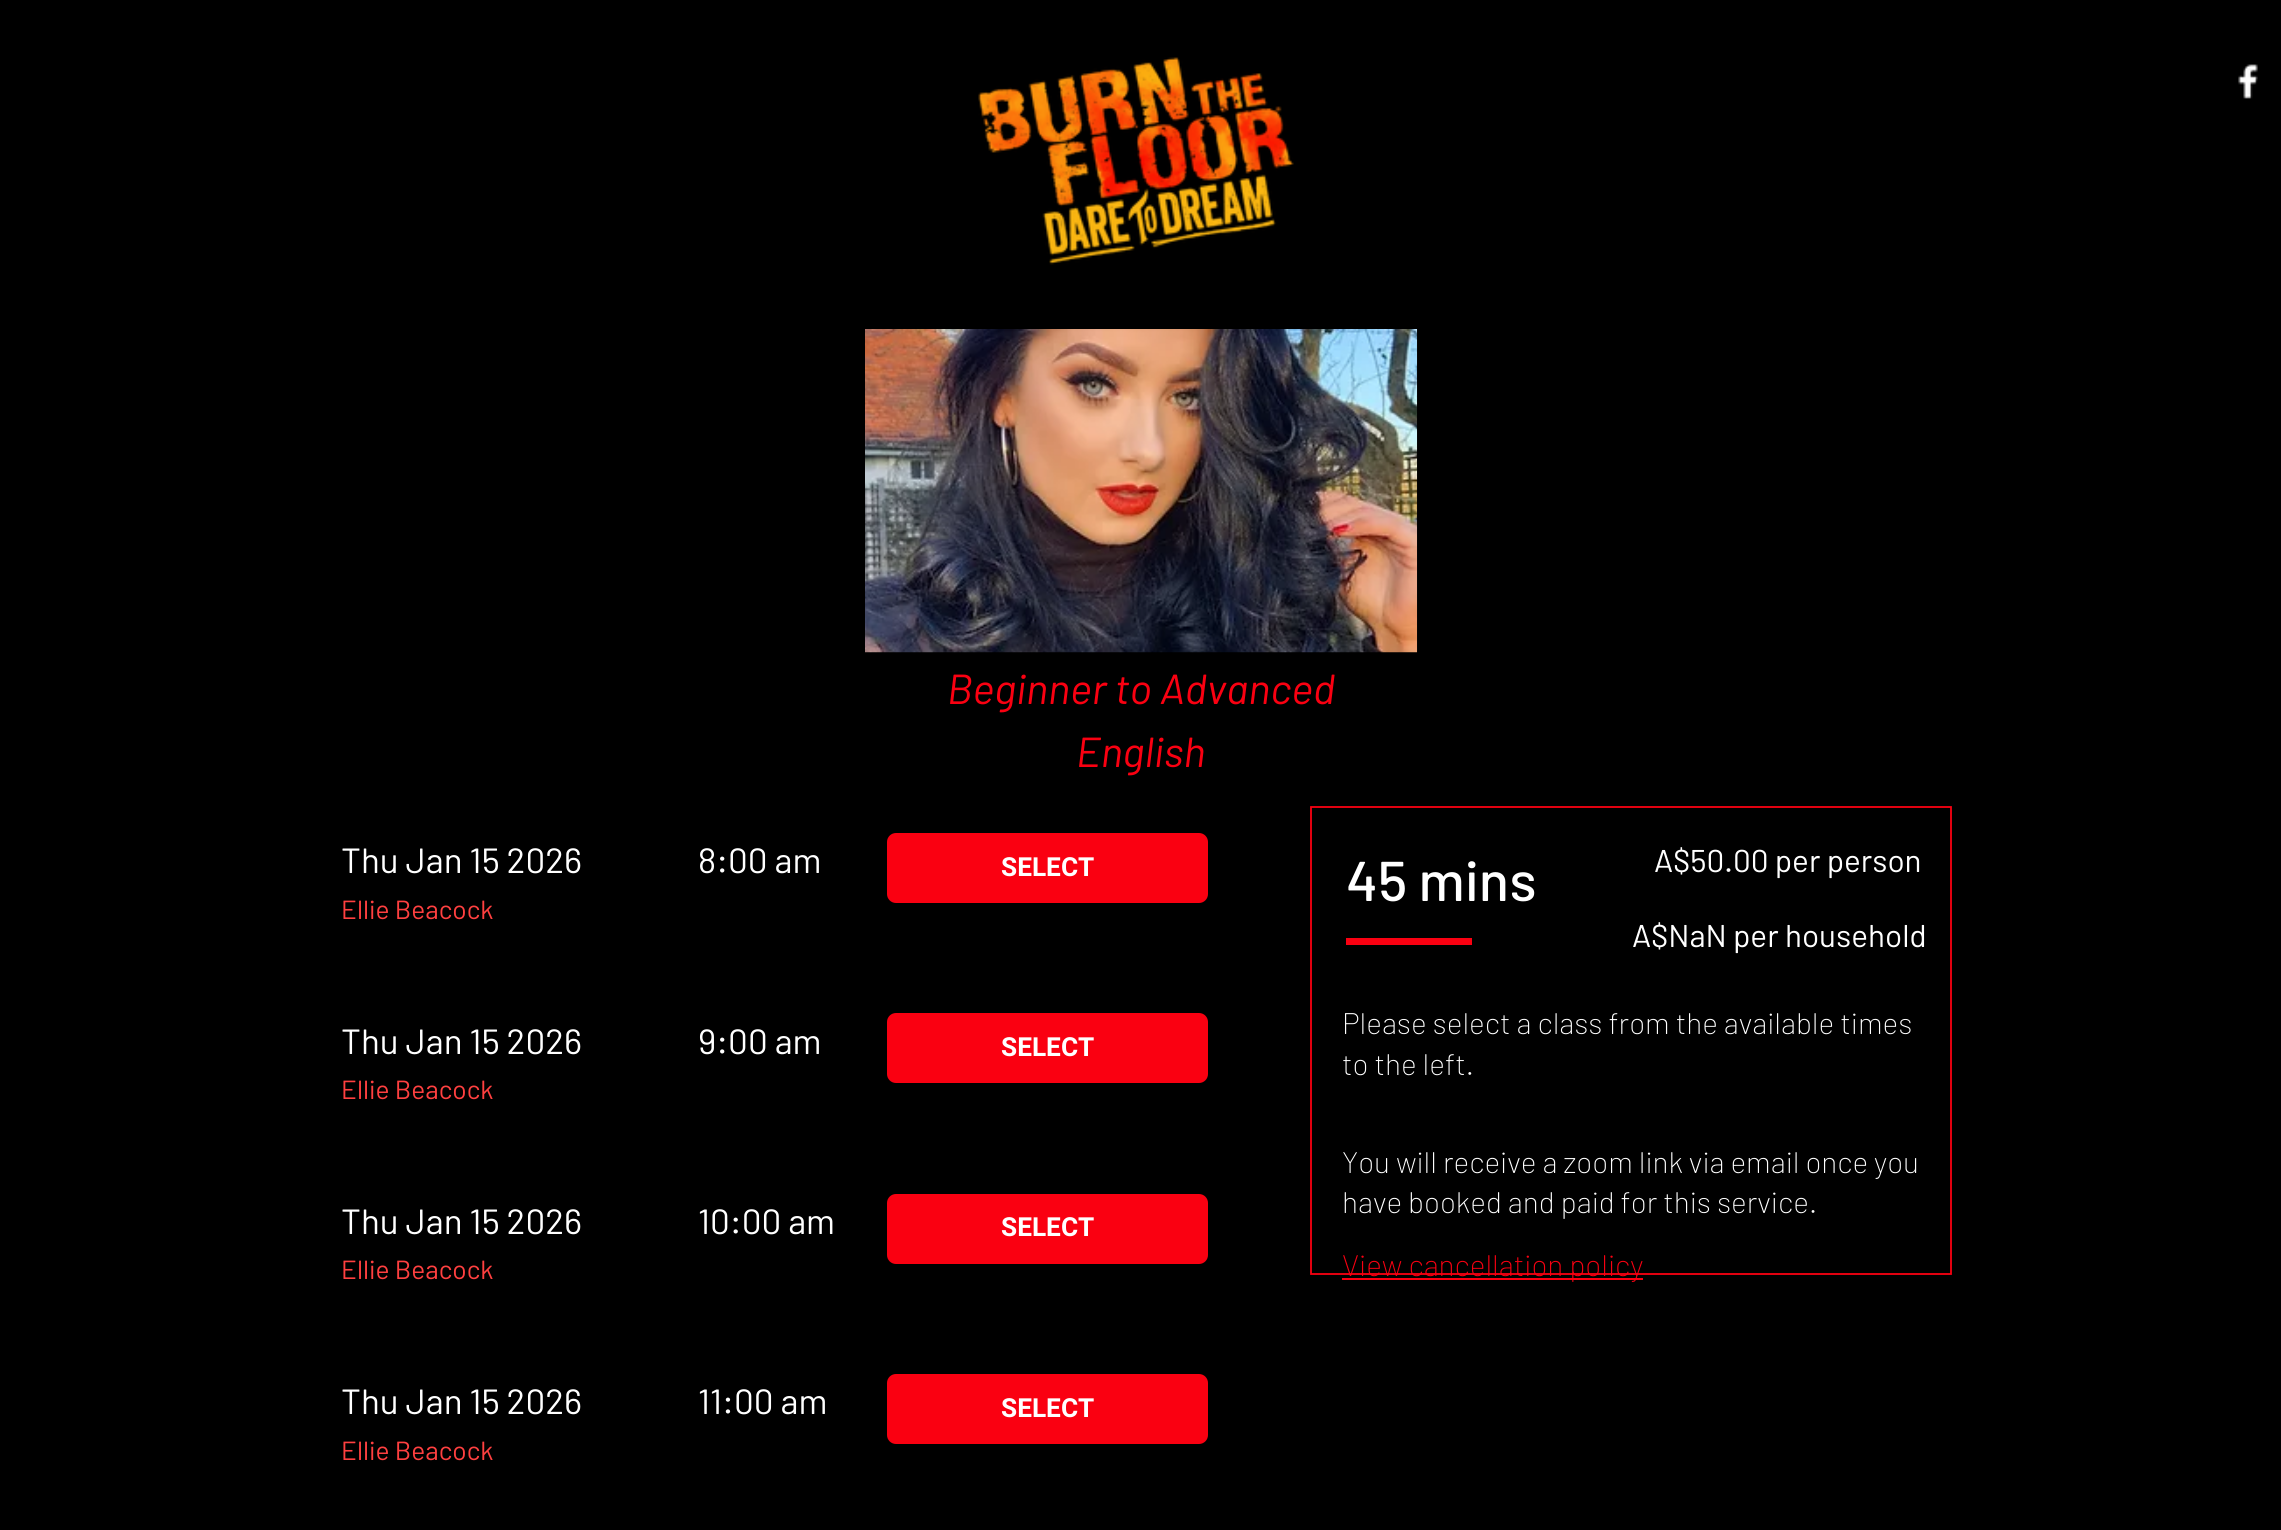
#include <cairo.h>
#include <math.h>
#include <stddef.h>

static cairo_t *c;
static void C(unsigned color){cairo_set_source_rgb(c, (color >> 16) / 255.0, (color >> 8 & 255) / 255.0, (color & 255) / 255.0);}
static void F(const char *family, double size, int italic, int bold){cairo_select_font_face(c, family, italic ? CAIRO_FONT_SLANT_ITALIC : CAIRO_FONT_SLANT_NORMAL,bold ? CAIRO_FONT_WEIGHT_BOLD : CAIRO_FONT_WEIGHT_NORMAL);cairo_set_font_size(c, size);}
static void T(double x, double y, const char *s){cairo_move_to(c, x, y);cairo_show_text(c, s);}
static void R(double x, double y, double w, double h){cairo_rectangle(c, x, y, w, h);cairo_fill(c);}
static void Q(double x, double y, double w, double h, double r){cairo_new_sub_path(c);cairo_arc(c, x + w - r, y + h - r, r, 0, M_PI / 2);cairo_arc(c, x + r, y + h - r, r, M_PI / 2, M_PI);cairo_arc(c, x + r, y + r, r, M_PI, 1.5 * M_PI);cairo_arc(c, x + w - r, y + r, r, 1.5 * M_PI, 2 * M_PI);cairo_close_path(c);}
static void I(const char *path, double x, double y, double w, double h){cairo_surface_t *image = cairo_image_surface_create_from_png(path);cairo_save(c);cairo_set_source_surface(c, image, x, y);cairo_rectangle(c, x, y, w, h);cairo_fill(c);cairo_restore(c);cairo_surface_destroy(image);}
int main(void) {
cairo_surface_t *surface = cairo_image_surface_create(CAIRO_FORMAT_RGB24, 2281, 1530);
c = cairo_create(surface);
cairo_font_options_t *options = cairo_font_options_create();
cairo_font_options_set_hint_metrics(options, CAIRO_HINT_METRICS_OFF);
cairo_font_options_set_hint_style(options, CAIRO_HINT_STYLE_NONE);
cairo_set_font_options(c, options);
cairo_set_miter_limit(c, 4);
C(0x000000);
cairo_paint(c);
I("1.png",978,57,316,208);
I("2.png",2238,64,20,35);
I("3.png",865,329,553,324);
F("Barlow",42,1,0);
C(0xfa0011);
T(947,704,"Beginner to Advanced");
T(1076,767,"English");
F("Barlow",35,0,0);
C(0xffffff);
T(341,873,"Thu Jan 15 2026");
T(698,873,"8:00 am");
C(0xfa0011);
Q(887,833,321,70,9);
cairo_fill(c);
F("Roboto",26.25,0,1);
C(0xffffff);
T(1001,876,"SELECT");
F("Barlow",26.25,0,0);
C(0xff4040);
T(341,919,"Ellie Beacock");
F("Barlow",35,0,0);
C(0xffffff);
T(341,1054,"Thu Jan 15 2026");
T(698,1054,"9:00 am");
C(0xfa0011);
Q(887,1013,321,70,9);
cairo_fill(c);
F("Roboto",26.25,0,1);
C(0xffffff);
T(1001,1056,"SELECT");
F("Barlow",26.25,0,0);
C(0xff4040);
T(341,1099,"Ellie Beacock");
F("Barlow",35,0,0);
C(0xffffff);
T(341,1234,"Thu Jan 15 2026");
T(698,1234,"10:00 am");
C(0xfa0011);
Q(887,1194,321,70,9);
cairo_fill(c);
F("Roboto",26.25,0,1);
C(0xffffff);
T(1001,1236,"SELECT");
F("Barlow",26.25,0,0);
C(0xff4040);
T(341,1279,"Ellie Beacock");
F("Barlow",35,0,0);
C(0xffffff);
T(341,1414,"Thu Jan 15 2026");
T(698,1414,"11:00 am");
C(0xfa0011);
Q(887,1374,321,70,9);
cairo_fill(c);
F("Roboto",26.25,0,1);
C(0xffffff);
T(1001,1417,"SELECT");
F("Barlow",26.25,0,0);
C(0xff4040);
T(341,1460,"Ellie Beacock");
F("Barlow Medium",56,0,0);
C(0xffffff);
T(1346,901,"45 mins");
F("Barlow ExtraLight",29.75,0,0);
T(1342,1034,"Please select a class from the available times");
T(1342,1075,"to the left.");
T(1342,1173,"You will receive a zoom link via email once you");
T(1342,1213,"have booked and paid for this service.");
cairo_new_path(c);
cairo_move_to(c,1951,807);
cairo_line_to(c,1951,1274);
cairo_line_to(c,1311,1274);
cairo_line_to(c,1311,807);
cairo_close_path(c);
C(0xfa0011);
cairo_set_line_width(c,1.8);
cairo_stroke(c);
F("Barlow",31.5,0,0);
C(0xffffff);
T(1654,872,"A$50.00 per person");
C(0xfa0011);
R(1346,938,126,7);
C(0xffffff);
T(1632,947,"A$NaN per household");
C(0xfa0011);
R(1342,1278,301,2);
F("Barlow ExtraLight",29.75,0,0);
T(1342,1276,"View cancellation policy");
cairo_surface_write_to_png(surface, "o.png");
cairo_font_options_destroy(options);
cairo_destroy(c);
cairo_surface_destroy(surface);
return 0;
}
